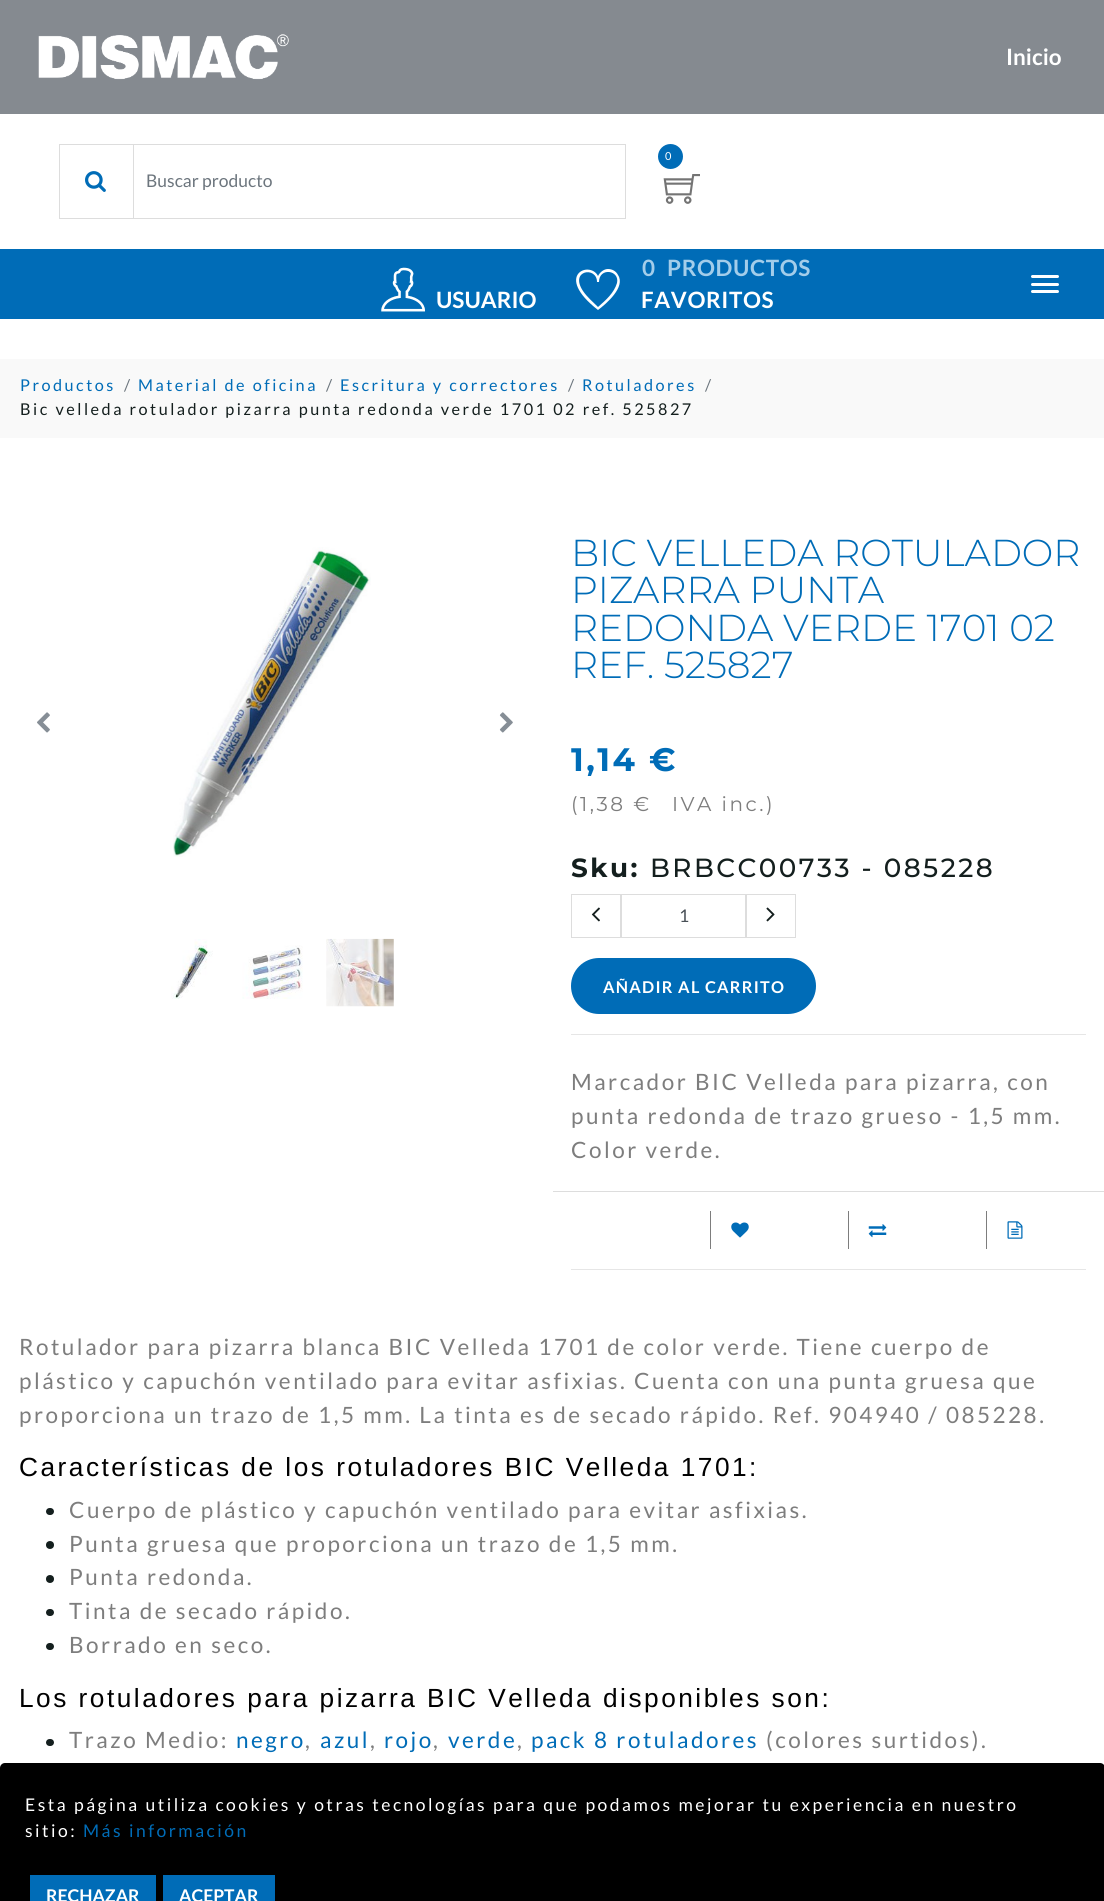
#include <cairo.h>
#include <math.h>
#include <stddef.h>

static cairo_t *c;
static void C(unsigned color){cairo_set_source_rgb(c, (color >> 16) / 255.0, (color >> 8 & 255) / 255.0, (color & 255) / 255.0);}
static void F(const char *family, double size, int italic, int bold){cairo_select_font_face(c, family, italic ? CAIRO_FONT_SLANT_ITALIC : CAIRO_FONT_SLANT_NORMAL,bold ? CAIRO_FONT_WEIGHT_BOLD : CAIRO_FONT_WEIGHT_NORMAL);cairo_set_font_size(c, size);}
static void T(double x, double y, const char *s){cairo_move_to(c, x, y);cairo_show_text(c, s);}
static void L(double x, double y, const char *s, double letter, double word){cairo_move_to(c, x, y);while (*s) {char ch[5] = {0};int n = 0;do ch[n++] = *s++; while ((*s & 0xC0) == 0x80);cairo_show_text(c, ch);cairo_rel_move_to(c, letter + word * (*ch == ' '), 0);}}
static void R(double x, double y, double w, double h){cairo_rectangle(c, x, y, w, h);cairo_fill(c);}
static void Q(double x, double y, double w, double h, double r){cairo_new_sub_path(c);cairo_arc(c, x + w - r, y + h - r, r, 0, M_PI / 2);cairo_arc(c, x + r, y + h - r, r, M_PI / 2, M_PI);cairo_arc(c, x + r, y + r, r, M_PI, 1.5 * M_PI);cairo_arc(c, x + w - r, y + r, r, 1.5 * M_PI, 2 * M_PI);cairo_close_path(c);}
static void I(const char *path, double x, double y, double w, double h){cairo_surface_t *image = cairo_image_surface_create_from_png(path);cairo_save(c);cairo_set_source_surface(c, image, x, y);cairo_rectangle(c, x, y, w, h);cairo_fill(c);cairo_restore(c);cairo_surface_destroy(image);}
int main(void) {
cairo_surface_t *surface = cairo_image_surface_create(CAIRO_FORMAT_RGB24, 1104, 1901);
c = cairo_create(surface);
cairo_font_options_t *options = cairo_font_options_create();
cairo_font_options_set_hint_metrics(options, CAIRO_HINT_METRICS_OFF);
cairo_font_options_set_hint_style(options, CAIRO_HINT_STYLE_NONE);
cairo_set_font_options(c, options);
cairo_set_miter_limit(c, 4);
C(0xffffff);
cairo_paint(c);
C(0x858a90);
R(0,0,1104,114);
I("1.png",38,34,251,46);
F("Lato",22.5,0,1);
C(0xffffff);
T(1006,65,"Inicio");
C(0x006cb7);
cairo_new_path(c);
cairo_arc(c,670.5,156.5,12.5,0,2 * M_PI);
cairo_fill(c);
F("Lato",11,0,0);
C(0xffffff);
L(665,160,"0",2.5,0);
I("2.png",663,174,37,30);
cairo_rectangle(c,59.5,144.5,566,74);
C(0xdddddd);
cairo_set_line_width(c,1);
cairo_stroke(c);
I("3.png",85,171,21,21);
R(133,145,1,73);
F("Lato",17.5,0,0);
C(0x6c757d);
T(146,187,"Buscar producto");
C(0x006cb7);
R(0,249,1104,70);
I("4.png",381,267,44,45);
F("Lato",22.5,0,1);
C(0xffffff);
T(436,308,"USUARIO");
C(0xa3cdea);
L(667,276,"PRODUCTOS",.6,0);
C(0xffffff);
L(641,308,"FAVORITOS",.6,0);
cairo_new_path(c);
cairo_move_to(c,608,269);
cairo_curve_to(c,604,269,600,272,598,276);
cairo_curve_to(c,590,260,553,275,598,310);
cairo_curve_to(c,606,304,626,287,618,275);
cairo_curve_to(c,616,271,612,269,608,269);
cairo_close_path(c);
cairo_move_to(c,617,283);
cairo_curve_to(c,614,293,606,300,598,307);
cairo_curve_to(c,593,302,587,297,583,291);
cairo_curve_to(c,569,270,597,266,597,282);
cairo_line_to(c,599,282);
cairo_curve_to(c,599,267,620,270,617,283);
cairo_close_path(c);
cairo_fill(c);
C(0xa3cdea);
L(642,276,"0",.6,0);
C(0xffffff);
Q(1031,275,28,3,1.5);
cairo_fill(c);
Q(1031,283,28,3,1.5);
cairo_fill(c);
Q(1031,290,28,3,1.5);
cairo_fill(c);
C(0xf9f9f9);
R(0,359,1104,79);
F("Lato",16.25,0,0);
C(0x006cb7);
L(20,391,"Productos",2.5,0);
C(0x6c757d);
L(124,391,"/",2.5,0);
C(0x006cb7);
L(138,391,"Material de oficina",2.5,0);
C(0x6c757d);
L(326,391,"/",2.5,0);
C(0x006cb7);
L(340,391,"Escritura y correctores",2.5,0);
C(0x6c757d);
L(568,391,"/",2.5,0);
C(0x006cb7);
L(582,391,"Rotuladores",2.5,0);
C(0x6c757d);
L(705,391,"/",2.5,0);
C(0x141f1e);
L(20,415,"Bic velleda rotulador pizarra punta redonda verde 1701 02 ref. 525827",2.5,0);
I("5.png",37,712,13,21);
I("6.png",173,547,198,310);
I("7.png",499,712,14,21);
I("8.png",171,939,42,60);
I("9.png",242,945,61,54);
I("10.png",326,938,68,69);
F("Montserrat Light",37.5,0,0);
C(0x006cb7);
T(571,566,"BIC VELLEDA ROTULADOR");
T(571,603,"PIZARRA PUNTA");
T(571,641,"REDONDA VERDE 1701 02");
T(571,678,"REF. 525827");
F("Montserrat",32.5,0,1);
L(571,771,"1,14 €",2.5,0);
F("Montserrat",20,0,0);
C(0x7d7d7d);
L(571,811,"(1,38 €",2.5,0);
L(672,811,"IVA inc.)",2.5,0);
F("Montserrat",26.25,0,1);
C(0x141f1e);
L(571,877,"Sku:",2.5,0);
F("Montserrat Medium",26.25,0,0);
L(650,877,"BRBCC00733 - 085228",2.5,0);
cairo_rectangle(c,571.5,894.5,49,43);
C(0xdddddd);
cairo_stroke(c);
I("11.png",591,907,9,15);
cairo_rectangle(c,621.5,894.5,124,43);
cairo_stroke(c);
F("Lato",17.5,0,0);
C(0x495057);
T(679,922,"1");
cairo_rectangle(c,746.5,894.5,49,43);
C(0xdddddd);
cairo_stroke(c);
I("12.png",766,907,9,15);
C(0x006cb7);
Q(571,958,245,56,28);
cairo_fill(c);
F("Lato",16.25,0,1);
C(0xffffff);
L(603,993,"AÑADIR AL CARRITO",1.25,0);
C(0xe6e6e6);
R(571,1034,515,1);
F("Lato",22.5,0,0);
C(0x7d7d7d);
L(571,1090,"Marcador BIC Velleda para pizarra, con",2.5,0);
L(571,1124,"punta redonda de trazo grueso - 1,5 mm.",2.5,0);
L(571,1158,"Color verde.",2.5,0);
C(0xdddddd);
R(553,1191,551,1);
C(0x7d7d7d);
R(710,1211,1,38);
I("13.png",731,1222,18,16);
R(848,1211,1,38);
I("14.png",868,1224,19,14);
R(986,1211,1,38);
I("15.png",1007,1221,16,18);
C(0xe6e6e6);
R(571,1269,515,1);
C(0x7d7d7d);
L(19,1355,"Rotulador para pizarra blanca BIC Velleda 1701 de color verde. Tiene cuerpo de",2.5,0);
L(19,1389,"plástico y capuchón ventilado para evitar asfixias. Cuenta con una punta gruesa que",2.5,0);
L(19,1423,"proporciona un trazo de 1,5 mm. La tinta es de secado rápido. Ref. 904940 / 085228.",2.5,0);
F("Liberation Sans",26.25,0,0);
C(0x000000);
L(19,1476,"Características de los rotuladores BIC Velleda 1701:",2.5,0);
C(0x141f1e);
Q(46,1508,8,7,3.5);
cairo_fill(c);
F("Lato",22.5,0,0);
C(0x7d7d7d);
L(69,1518,"Cuerpo de plástico y capuchón ventilado para evitar asfixias.",2.5,0);
C(0x141f1e);
cairo_new_path(c);
cairo_arc(c,50,1545,4,0,2 * M_PI);
cairo_fill(c);
C(0x7d7d7d);
L(69,1552,"Punta gruesa que proporciona un trazo de 1,5 mm.",2.5,0);
C(0x141f1e);
cairo_new_path(c);
cairo_arc(c,50,1579,4,0,2 * M_PI);
cairo_fill(c);
C(0x7d7d7d);
L(69,1585,"Punta redonda.",2.5,0);
C(0x141f1e);
Q(46,1609,8,7,3.5);
cairo_fill(c);
C(0x7d7d7d);
L(69,1619,"Tinta de secado rápido.",2.5,0);
C(0x141f1e);
Q(46,1643,8,7,3.5);
cairo_fill(c);
C(0x7d7d7d);
L(69,1653,"Borrado en seco.",2.5,0);
F("Liberation Sans",26.25,0,0);
C(0x000000);
L(19,1707,"Los rotuladores para pizarra BIC Velleda disponibles son:",2.5,0);
C(0x141f1e);
Q(46,1739,8,7,3.5);
cairo_fill(c);
F("Lato",22.5,0,0);
C(0x7d7d7d);
L(69,1748,"Trazo Medio:",2.5,0);
C(0x006cb7);
L(236,1748,"negro",2.5,0);
C(0x7d7d7d);
L(305,1748,",",2.5,0);
C(0x006cb7);
L(320,1748,"azul",2.5,0);
C(0x7d7d7d);
L(370,1748,",",2.5,0);
C(0x006cb7);
L(384,1748,"rojo",2.5,0);
C(0x7d7d7d);
L(433,1748,",",2.5,0);
C(0x006cb7);
L(448,1748,"verde",2.5,0);
C(0x7d7d7d);
L(517,1748,",",2.5,0);
C(0x006cb7);
L(531,1748,"pack 8 rotuladores",2.5,0);
C(0x7d7d7d);
L(766,1748,"(colores surtidos).",2.5,0);
C(0x000000);
Q(0,1763,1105,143,5);
cairo_fill(c);
F("Lato",17.5,0,0);
C(0xffffff);
L(25,1811,"Esta página utiliza cookies y otras tecnologías para que podamos mejorar tu experiencia en nuestro",2.5,0);
L(25,1837,"sitio:",2.5,0);
C(0x006cb7);
L(83,1837,"Más información",2.5,0);
R(30,1875,126,26);
F("Lato",17.5,0,1);
C(0xffffff);
T(46,1902,"RECHAZAR");
C(0x006cb7);
R(163,1875,112,26);
C(0xffffff);
T(179,1902,"ACEPTAR");
cairo_surface_write_to_png(surface, "o.png");
cairo_font_options_destroy(options);
cairo_destroy(c);
cairo_surface_destroy(surface);
return 0;
}
